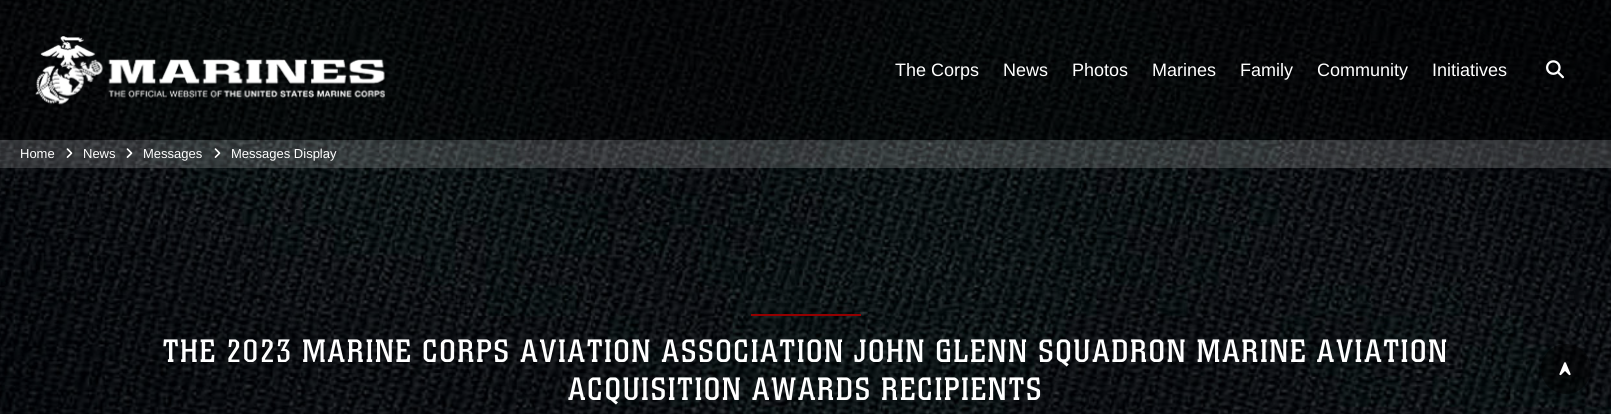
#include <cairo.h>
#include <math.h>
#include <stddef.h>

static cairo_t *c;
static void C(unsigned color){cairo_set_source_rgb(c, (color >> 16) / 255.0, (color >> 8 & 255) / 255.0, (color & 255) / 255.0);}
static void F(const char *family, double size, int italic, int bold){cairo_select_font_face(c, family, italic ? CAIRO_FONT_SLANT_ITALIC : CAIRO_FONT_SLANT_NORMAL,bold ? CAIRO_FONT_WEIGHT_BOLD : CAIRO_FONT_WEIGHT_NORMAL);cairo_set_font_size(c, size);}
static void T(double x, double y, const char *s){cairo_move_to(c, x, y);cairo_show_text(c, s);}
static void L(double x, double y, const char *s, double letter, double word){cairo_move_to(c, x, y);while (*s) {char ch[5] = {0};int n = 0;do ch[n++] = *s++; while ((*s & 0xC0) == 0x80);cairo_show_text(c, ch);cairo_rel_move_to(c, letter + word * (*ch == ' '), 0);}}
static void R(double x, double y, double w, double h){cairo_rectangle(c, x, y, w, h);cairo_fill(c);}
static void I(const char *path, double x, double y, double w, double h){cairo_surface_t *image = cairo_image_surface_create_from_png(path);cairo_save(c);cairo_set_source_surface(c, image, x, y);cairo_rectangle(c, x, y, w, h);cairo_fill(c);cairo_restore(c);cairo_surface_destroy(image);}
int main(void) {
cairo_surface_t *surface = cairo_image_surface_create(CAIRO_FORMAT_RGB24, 1611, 414);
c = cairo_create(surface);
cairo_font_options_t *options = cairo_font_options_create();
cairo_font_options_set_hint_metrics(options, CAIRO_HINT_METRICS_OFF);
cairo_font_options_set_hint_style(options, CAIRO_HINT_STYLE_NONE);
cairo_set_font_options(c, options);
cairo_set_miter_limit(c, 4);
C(0xffffff);
cairo_paint(c);
I("6.png",0,0,1611,414);
cairo_set_source_rgba(c,0,0,0,0.5);
R(0,0,1611,140);
I("1.png",35,36,350,69);
F("Liberation Sans",18,0,0);
C(0xffffff);
T(895,76,"The Corps");
T(1003,76,"News");
T(1072,76,"Photos");
T(1152,76,"Marines");
T(1240,76,"Family");
T(1317,76,"Community");
T(1432,76,"Initiatives");
I("2.png",1546,60,18,19);
cairo_set_source_rgba(c,1,1,1,0.17);
R(0,140,1611,28);
F("Liberation Sans",13,0,0);
C(0xffffff);
T(20,158,"Home");
I("3.png",66,148,7,10);
T(83,158,"News");
I("4.png",126,148,7,10);
T(143,158,"Messages");
I("5.png",214,148,7,10);
T(231,158,"Messages Display");
C(0x940000);
R(751,314,110,2);
F("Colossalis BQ",32,0,0);
C(0xffffff);
L(163,362,"THE 2023 MARINE CORPS AVIATION ASSOCIATION JOHN GLENN SQUADRON MARINE AVIATION",2,0);
L(568,400,"ACQUISITION AWARDS RECIPIENTS",2,0);
cairo_set_source_rgba(c,0,0,0,0.5);
cairo_new_path(c);
cairo_arc(c,1566,369,25,0,2 * M_PI);
cairo_fill(c);
I("7.png",1559,362,12,14);
cairo_surface_write_to_png(surface, "o.png");
cairo_font_options_destroy(options);
cairo_destroy(c);
cairo_surface_destroy(surface);
return 0;
}
